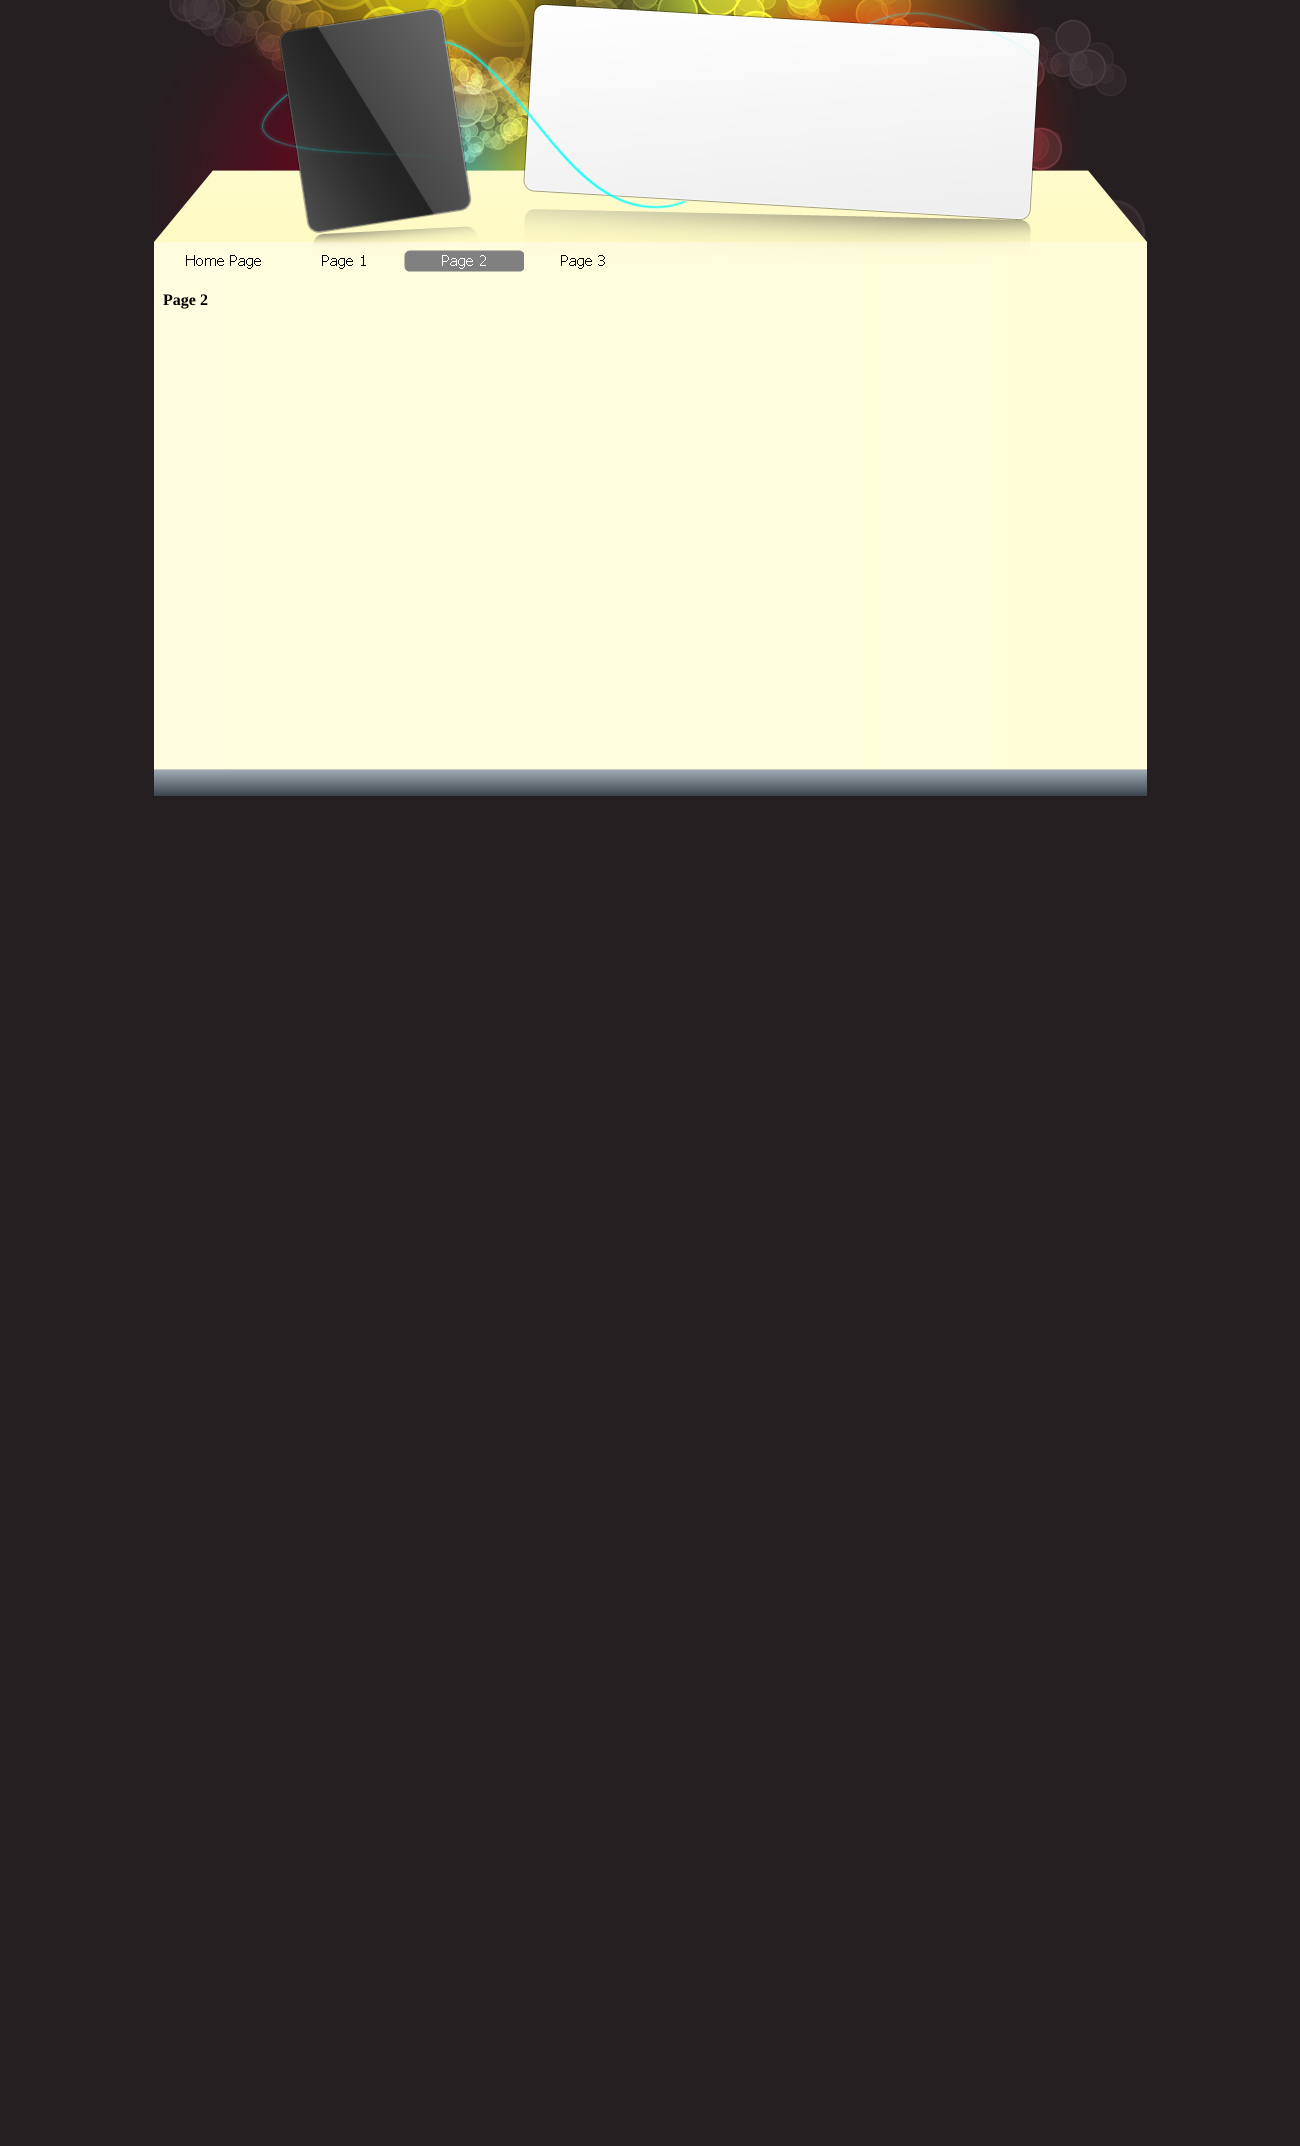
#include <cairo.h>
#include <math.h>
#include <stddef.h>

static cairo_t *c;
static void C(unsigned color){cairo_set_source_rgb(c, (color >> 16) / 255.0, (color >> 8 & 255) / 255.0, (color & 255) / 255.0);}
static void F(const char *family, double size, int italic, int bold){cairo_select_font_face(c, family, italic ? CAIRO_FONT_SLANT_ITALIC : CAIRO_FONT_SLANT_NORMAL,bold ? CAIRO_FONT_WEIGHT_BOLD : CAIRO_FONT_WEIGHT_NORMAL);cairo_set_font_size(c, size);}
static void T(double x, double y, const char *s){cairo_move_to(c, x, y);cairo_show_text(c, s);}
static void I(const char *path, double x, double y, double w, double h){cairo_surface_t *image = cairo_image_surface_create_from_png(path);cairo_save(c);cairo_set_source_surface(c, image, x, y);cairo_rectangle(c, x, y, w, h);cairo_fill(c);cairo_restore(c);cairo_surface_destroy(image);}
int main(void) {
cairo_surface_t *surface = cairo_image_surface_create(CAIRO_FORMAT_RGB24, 1300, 2146);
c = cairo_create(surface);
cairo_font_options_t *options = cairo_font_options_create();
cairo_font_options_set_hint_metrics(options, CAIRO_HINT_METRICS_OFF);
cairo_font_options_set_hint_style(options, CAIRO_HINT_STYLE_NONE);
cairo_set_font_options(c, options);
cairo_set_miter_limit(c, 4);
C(0x251f21);
cairo_paint(c);
I("1.png",154,0,993,250);
I("2.png",154,250,993,31);
I("3.png",186,255,75,14);
I("4.png",322,255,44,14);
I("5.png",404,250,120,22);
I("6.png",561,255,44,14);
I("7.png",154,281,993,488);
F("Liberation Serif",16,0,1);
C(0x000000);
T(163,305,"Page 2");
I("8.png",154,769,993,27);
cairo_surface_write_to_png(surface, "o.png");
cairo_font_options_destroy(options);
cairo_destroy(c);
cairo_surface_destroy(surface);
return 0;
}
